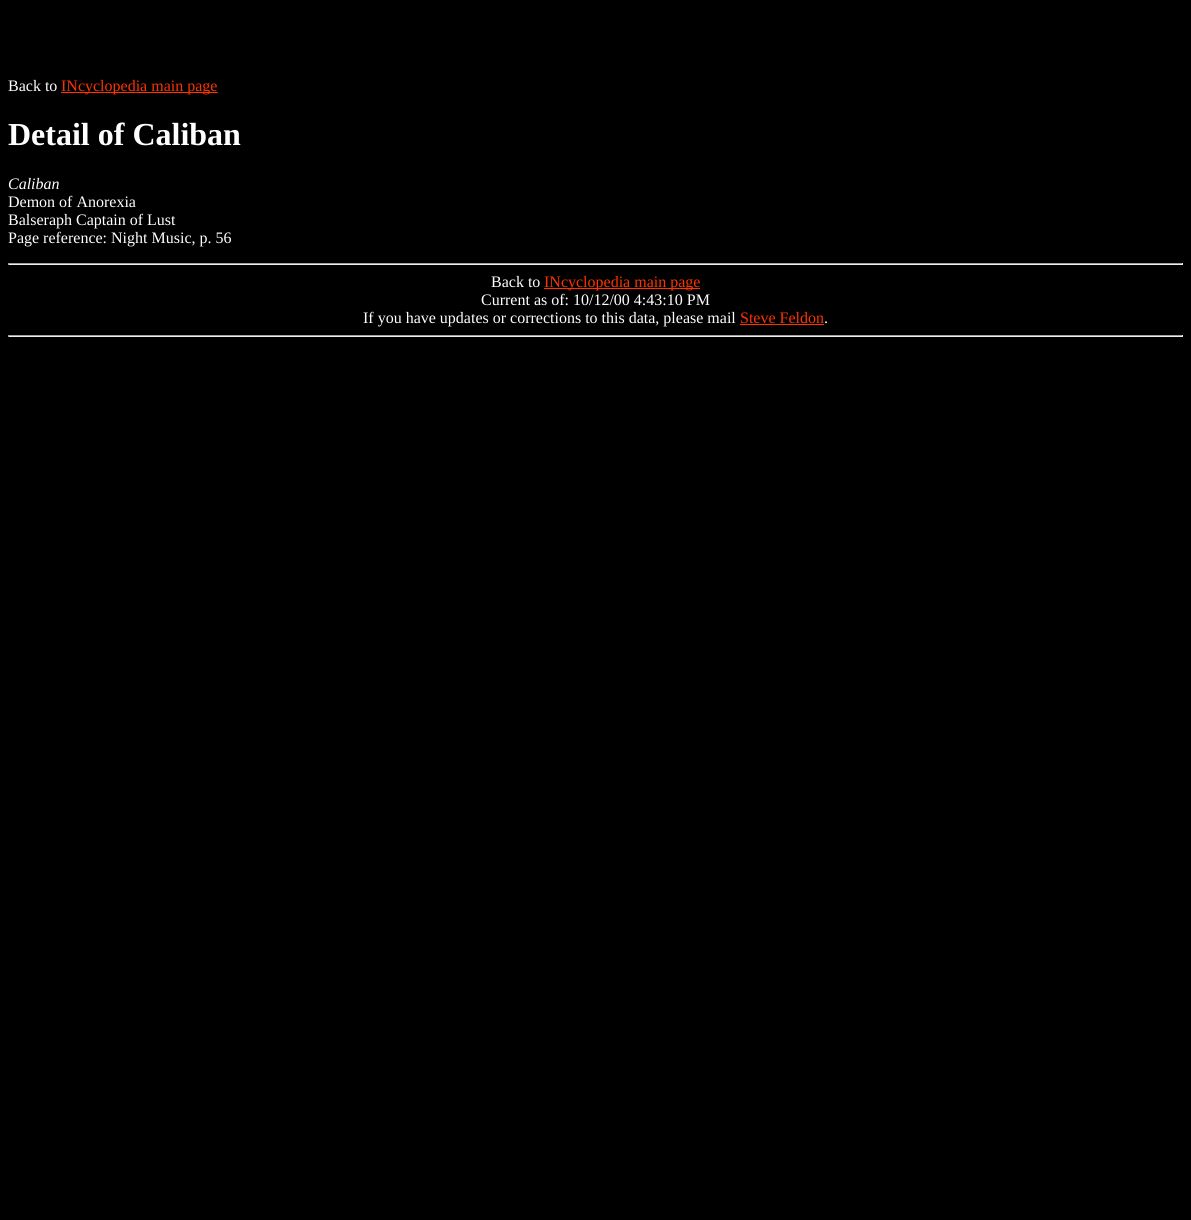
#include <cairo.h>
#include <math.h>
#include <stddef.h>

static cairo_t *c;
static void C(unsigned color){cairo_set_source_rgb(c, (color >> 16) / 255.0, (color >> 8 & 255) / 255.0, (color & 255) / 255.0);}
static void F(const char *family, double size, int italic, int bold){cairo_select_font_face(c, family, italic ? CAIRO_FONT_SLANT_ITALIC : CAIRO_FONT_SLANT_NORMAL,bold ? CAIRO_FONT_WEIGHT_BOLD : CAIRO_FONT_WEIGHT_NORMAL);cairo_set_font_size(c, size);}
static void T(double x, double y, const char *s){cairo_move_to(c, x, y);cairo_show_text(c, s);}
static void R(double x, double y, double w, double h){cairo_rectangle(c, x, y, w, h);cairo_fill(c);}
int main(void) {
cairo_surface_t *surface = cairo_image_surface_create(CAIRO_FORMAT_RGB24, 1191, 1220);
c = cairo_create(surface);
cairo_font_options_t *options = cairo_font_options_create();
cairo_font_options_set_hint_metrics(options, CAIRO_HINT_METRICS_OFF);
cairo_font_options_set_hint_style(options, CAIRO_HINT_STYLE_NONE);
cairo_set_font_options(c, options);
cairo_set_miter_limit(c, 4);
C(0x000000);
cairo_paint(c);
F("Liberation Serif",16,0,0);
C(0xffffff);
T(8,91,"Back to");
C(0xff3300);
R(61,92,157,1);
T(61,91,"INcyclopedia main page");
F("Liberation Serif",32,0,1);
C(0xffffff);
T(8,145,"Detail of Caliban");
F("Liberation Serif",16,1,0);
T(8,189,"Caliban");
F("Liberation Serif",16,0,0);
T(8,207,"Demon of Anorexia");
T(8,225,"Balseraph Captain of Lust");
T(8,243,"Page reference: Night Music, p. 56");
C(0x9f9f9f);
R(8,263,1175,1);
C(0xeeeeee);
R(1182,263,1,2);
R(8,264,1175,1);
C(0x9f9f9f);
R(8,263,1,2);
C(0xffffff);
T(491,287,"Back to");
C(0xff3300);
R(544,288,156,1);
T(544,287,"INcyclopedia main page");
C(0xffffff);
T(481,305,"Current as of: 10/12/00 4:43:10 PM");
T(363,323,"If you have updates or corrections to this data, please mail");
C(0xff3300);
T(740,323,"Steve Feldon");
R(740,324,84,1);
C(0xffffff);
T(824,323,".");
C(0x9f9f9f);
R(8,335,1175,1);
C(0xeeeeee);
R(1182,335,1,2);
R(8,336,1175,1);
C(0x9f9f9f);
R(8,335,1,2);
cairo_surface_write_to_png(surface, "o.png");
cairo_font_options_destroy(options);
cairo_destroy(c);
cairo_surface_destroy(surface);
return 0;
}
